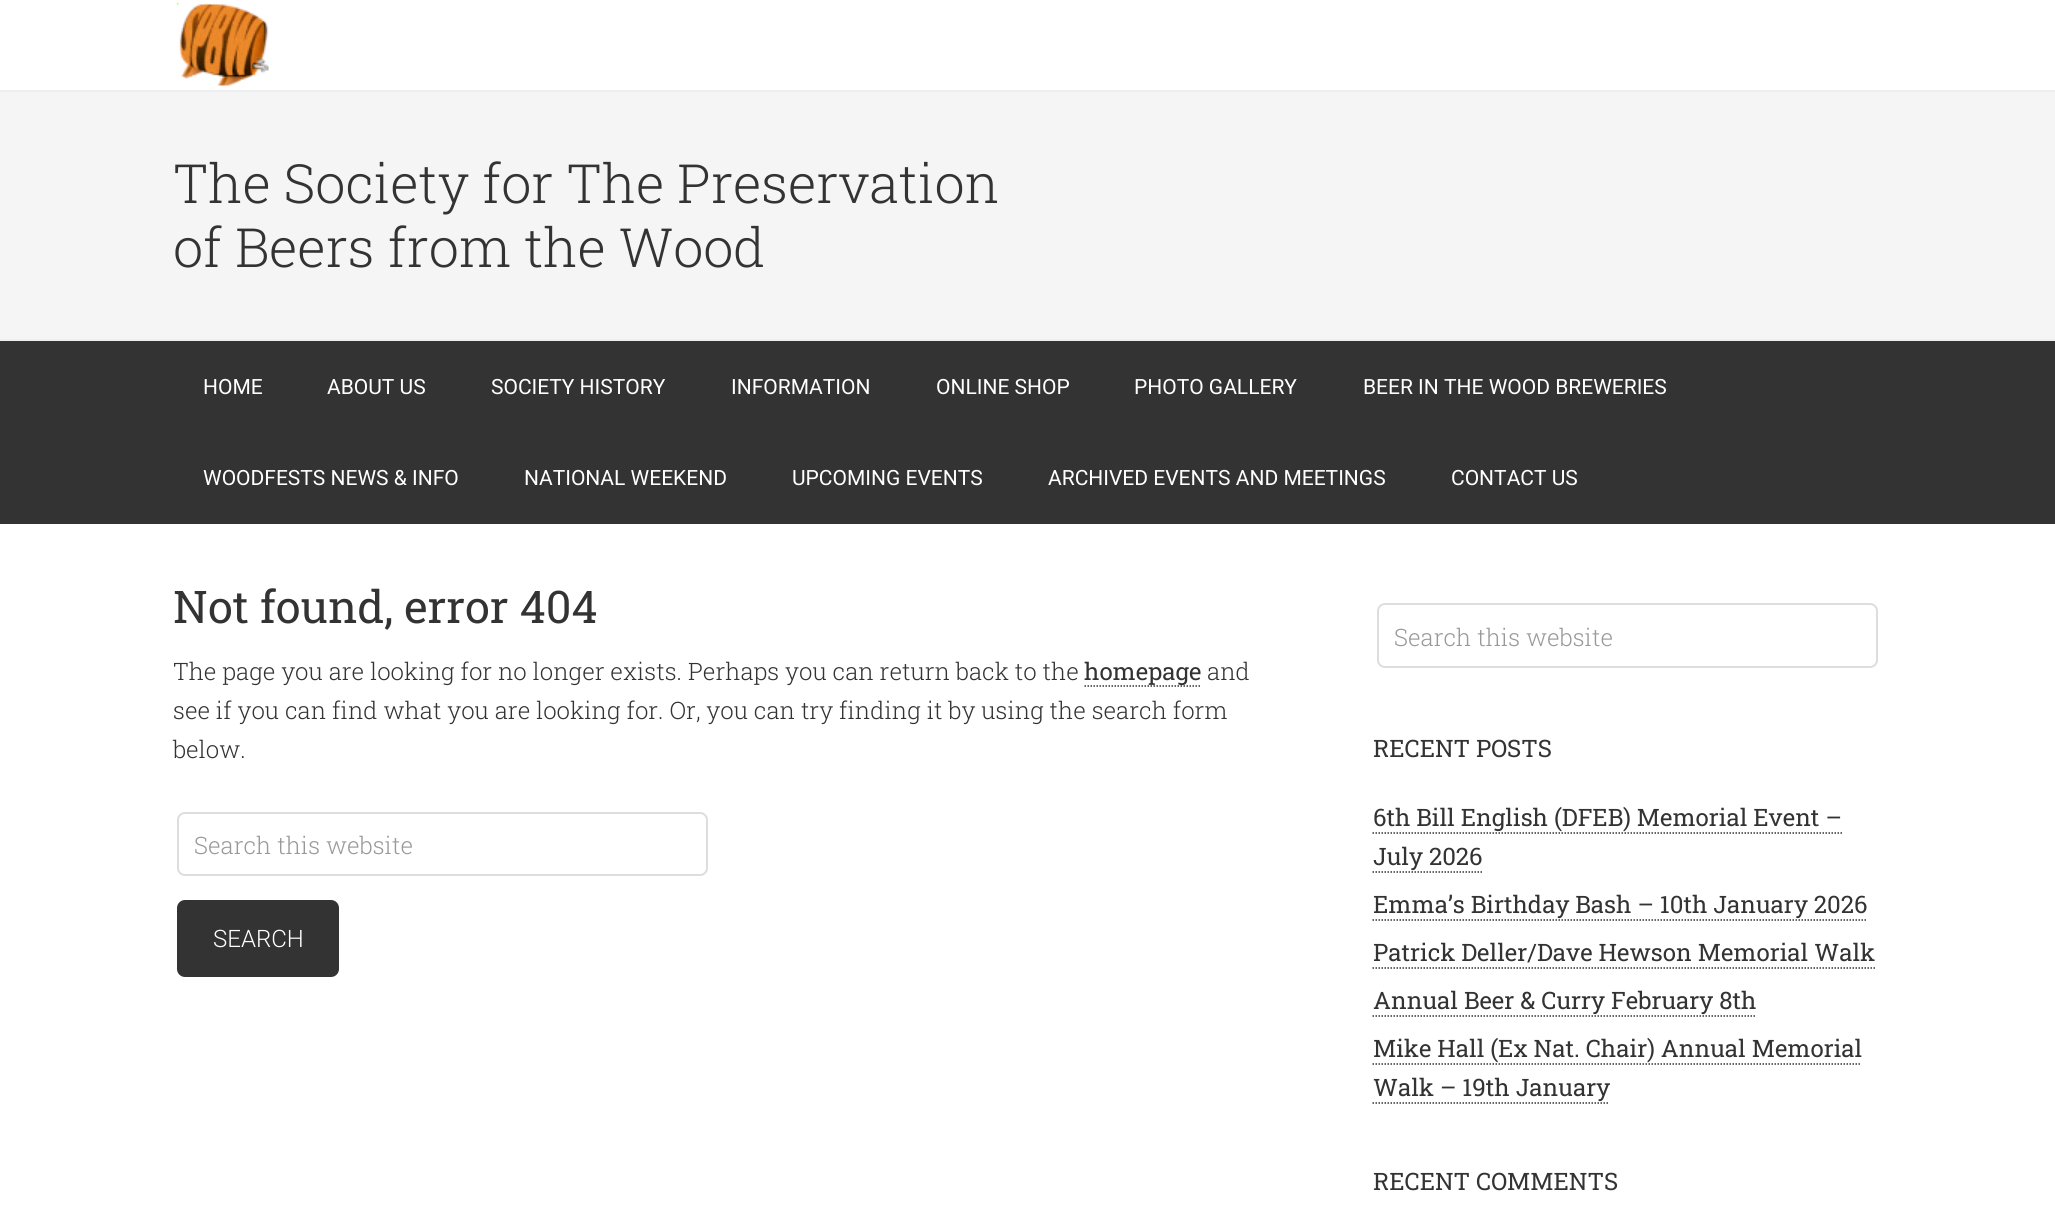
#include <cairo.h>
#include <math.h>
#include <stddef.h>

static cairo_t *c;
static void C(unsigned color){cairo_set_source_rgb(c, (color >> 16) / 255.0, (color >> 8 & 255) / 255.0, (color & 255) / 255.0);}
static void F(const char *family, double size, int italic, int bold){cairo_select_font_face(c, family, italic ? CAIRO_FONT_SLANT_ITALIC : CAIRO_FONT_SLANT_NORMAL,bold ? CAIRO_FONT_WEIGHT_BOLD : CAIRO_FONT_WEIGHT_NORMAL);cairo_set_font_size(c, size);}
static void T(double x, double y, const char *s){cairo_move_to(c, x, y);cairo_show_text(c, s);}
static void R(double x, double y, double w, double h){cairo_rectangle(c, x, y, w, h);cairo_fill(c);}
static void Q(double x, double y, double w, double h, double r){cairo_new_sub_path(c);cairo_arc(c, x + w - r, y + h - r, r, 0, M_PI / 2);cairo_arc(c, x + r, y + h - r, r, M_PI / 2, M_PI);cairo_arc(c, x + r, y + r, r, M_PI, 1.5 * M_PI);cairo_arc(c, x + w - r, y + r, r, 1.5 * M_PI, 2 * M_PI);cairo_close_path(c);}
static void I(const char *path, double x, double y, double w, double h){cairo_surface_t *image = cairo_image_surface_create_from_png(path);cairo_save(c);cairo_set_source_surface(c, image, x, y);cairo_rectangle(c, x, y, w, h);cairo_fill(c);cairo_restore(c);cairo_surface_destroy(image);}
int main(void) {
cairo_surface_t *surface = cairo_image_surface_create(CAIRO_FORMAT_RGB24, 2055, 1220);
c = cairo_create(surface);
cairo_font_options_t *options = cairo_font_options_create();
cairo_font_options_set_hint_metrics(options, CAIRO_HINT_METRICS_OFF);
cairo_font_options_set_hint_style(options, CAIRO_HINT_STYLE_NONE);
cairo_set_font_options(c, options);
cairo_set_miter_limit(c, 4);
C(0xffffff);
cairo_paint(c);
C(0xeeeeee);
R(0,90,2055,2);
I("1.png",176,2,93,84);
C(0xf5f5f5);
R(0,92,2055,247);
C(0xeeeeee);
R(0,339,2055,2);
F("Roboto Slab Light",54,0,0);
C(0x333333);
T(173,203,"The Society for The Preservation");
T(173,267,"of Beers from the Wood");
R(0,341,2055,183);
F("Roboto",21,0,0);
C(0xffffff);
T(203,394,"HOME");
T(327,394,"ABOUT US");
T(491,394,"SOCIETY HISTORY");
T(731,394,"INFORMATION");
T(936,394,"ONLINE SHOP");
T(1134,394,"PHOTO GALLERY");
T(1363,394,"BEER IN THE WOOD BREWERIES");
T(203,485,"WOODFESTS NEWS & INFO");
T(524,485,"NATIONAL WEEKEND");
T(792,485,"UPCOMING EVENTS");
T(1048,485,"ARCHIVED EVENTS AND MEETINGS");
T(1451,485,"CONTACT US");
F("Roboto Slab",45,0,0);
C(0x333333);
T(173,623,"Not found, error 404");
F("Roboto Slab Light",24,0,0);
T(173,680,"The page you are looking for no longer exists. Perhaps you can return back to the");
cairo_new_path(c);
cairo_move_to(c,1084.5,686);
cairo_line_to(c,1201.5,686);
cairo_set_line_width(c,1.5);
cairo_set_dash(c,(double[]){1.5,1.5},2,0);
cairo_stroke(c);
F("Roboto Slab",24,0,0);
T(1084,680,"homepage");
F("Roboto Slab Light",24,0,0);
T(1207,680,"and");
T(173,719,"see if you can find what you are looking for. Or, you can try finding it by using the search form");
T(173,758,"below.");
Q(178,813,529,62,7);
C(0xdddddd);
cairo_set_line_width(c,2);
cairo_set_dash(c,NULL,0,0);
cairo_stroke(c);
C(0x999999);
T(194,854,"Search this website");
C(0x333333);
Q(177,900,162,77,8);
cairo_fill(c);
F("Roboto Light",24,0,0);
C(0xffffff);
T(213,947,"SEARCH");
Q(1378,604,499,63,7);
C(0xdddddd);
cairo_stroke(c);
F("Roboto Slab Light",24,0,0);
C(0x999999);
T(1394,646,"Search this website");
F("Roboto Slab",24,0,0);
C(0x333333);
T(1373,757,"RECENT POSTS");
T(1373,826,"6th Bill English (DFEB) Memorial Event –");
cairo_new_path(c);
cairo_move_to(c,1372.5,833);
cairo_line_to(c,1842,833);
cairo_set_line_width(c,1.5);
cairo_set_dash(c,(double[]){1.5,1.5},2,0);
cairo_stroke(c);
T(1373,865,"July 2026");
cairo_new_path(c);
cairo_move_to(c,1372.5,872);
cairo_line_to(c,1482,872);
cairo_stroke(c);
T(1373,913,"Emma’s Birthday Bash – 10th January 2026");
cairo_new_path(c);
cairo_move_to(c,1372.5,920);
cairo_line_to(c,1867.5,920);
cairo_stroke(c);
T(1373,961,"Patrick Deller/Dave Hewson Memorial Walk");
cairo_new_path(c);
cairo_move_to(c,1372.5,968);
cairo_line_to(c,1875,968);
cairo_stroke(c);
T(1373,1009,"Annual Beer & Curry February 8th");
cairo_new_path(c);
cairo_move_to(c,1372.5,1016);
cairo_line_to(c,1756.5,1016);
cairo_stroke(c);
T(1373,1057,"Mike Hall (Ex Nat. Chair) Annual Memorial");
cairo_new_path(c);
cairo_move_to(c,1372.5,1064);
cairo_line_to(c,1861.5,1064);
cairo_stroke(c);
T(1373,1096,"Walk – 19th January");
cairo_new_path(c);
cairo_move_to(c,1372.5,1103);
cairo_line_to(c,1609.5,1103);
cairo_stroke(c);
T(1373,1190,"RECENT COMMENTS");
cairo_surface_write_to_png(surface, "o.png");
cairo_font_options_destroy(options);
cairo_destroy(c);
cairo_surface_destroy(surface);
return 0;
}
